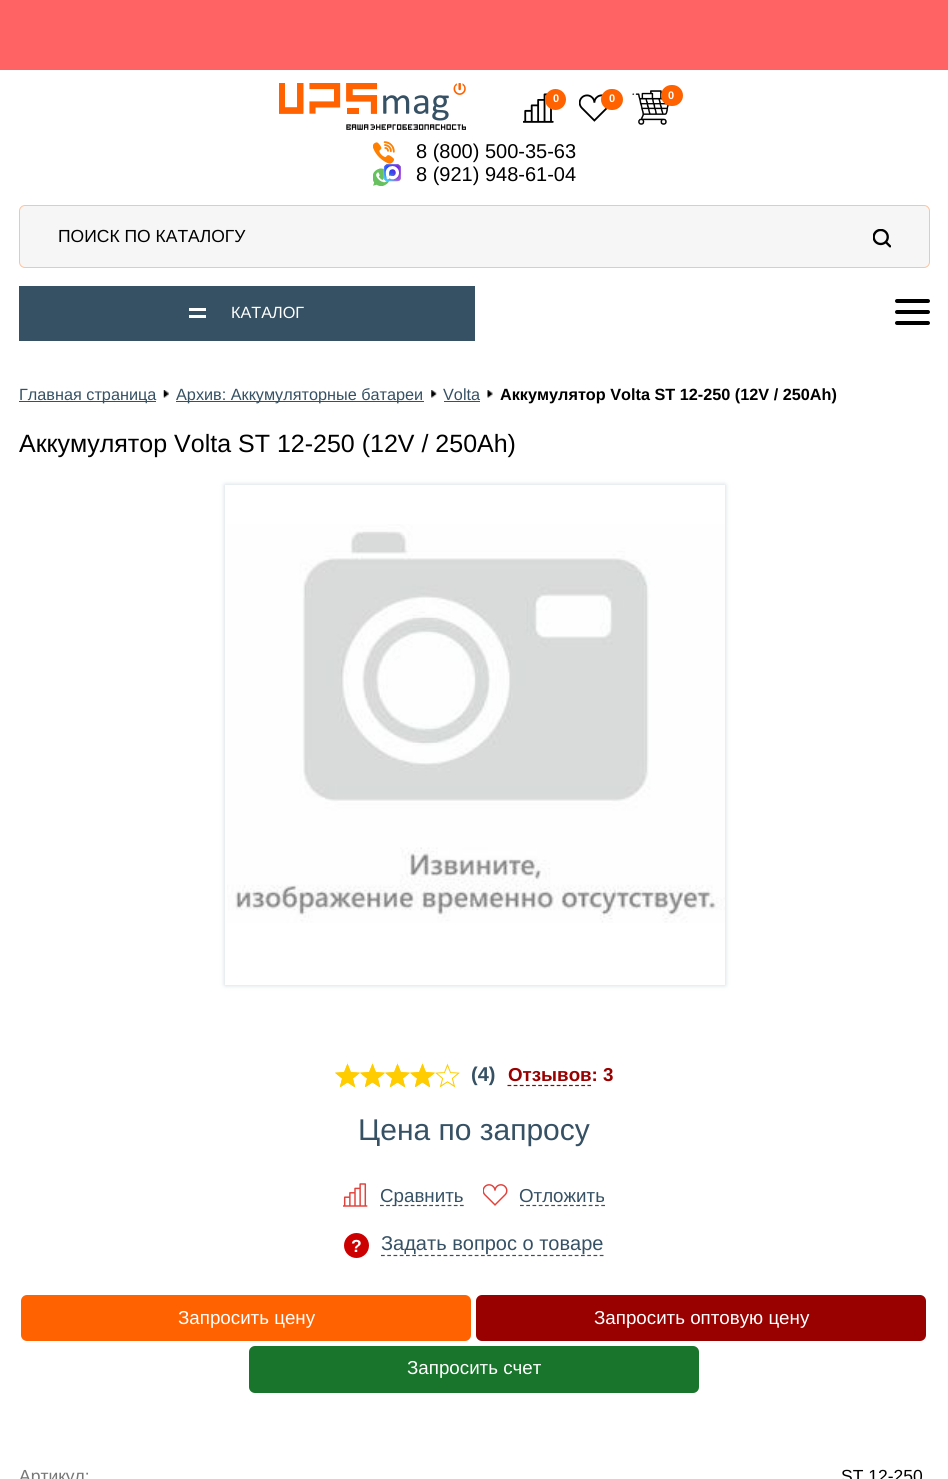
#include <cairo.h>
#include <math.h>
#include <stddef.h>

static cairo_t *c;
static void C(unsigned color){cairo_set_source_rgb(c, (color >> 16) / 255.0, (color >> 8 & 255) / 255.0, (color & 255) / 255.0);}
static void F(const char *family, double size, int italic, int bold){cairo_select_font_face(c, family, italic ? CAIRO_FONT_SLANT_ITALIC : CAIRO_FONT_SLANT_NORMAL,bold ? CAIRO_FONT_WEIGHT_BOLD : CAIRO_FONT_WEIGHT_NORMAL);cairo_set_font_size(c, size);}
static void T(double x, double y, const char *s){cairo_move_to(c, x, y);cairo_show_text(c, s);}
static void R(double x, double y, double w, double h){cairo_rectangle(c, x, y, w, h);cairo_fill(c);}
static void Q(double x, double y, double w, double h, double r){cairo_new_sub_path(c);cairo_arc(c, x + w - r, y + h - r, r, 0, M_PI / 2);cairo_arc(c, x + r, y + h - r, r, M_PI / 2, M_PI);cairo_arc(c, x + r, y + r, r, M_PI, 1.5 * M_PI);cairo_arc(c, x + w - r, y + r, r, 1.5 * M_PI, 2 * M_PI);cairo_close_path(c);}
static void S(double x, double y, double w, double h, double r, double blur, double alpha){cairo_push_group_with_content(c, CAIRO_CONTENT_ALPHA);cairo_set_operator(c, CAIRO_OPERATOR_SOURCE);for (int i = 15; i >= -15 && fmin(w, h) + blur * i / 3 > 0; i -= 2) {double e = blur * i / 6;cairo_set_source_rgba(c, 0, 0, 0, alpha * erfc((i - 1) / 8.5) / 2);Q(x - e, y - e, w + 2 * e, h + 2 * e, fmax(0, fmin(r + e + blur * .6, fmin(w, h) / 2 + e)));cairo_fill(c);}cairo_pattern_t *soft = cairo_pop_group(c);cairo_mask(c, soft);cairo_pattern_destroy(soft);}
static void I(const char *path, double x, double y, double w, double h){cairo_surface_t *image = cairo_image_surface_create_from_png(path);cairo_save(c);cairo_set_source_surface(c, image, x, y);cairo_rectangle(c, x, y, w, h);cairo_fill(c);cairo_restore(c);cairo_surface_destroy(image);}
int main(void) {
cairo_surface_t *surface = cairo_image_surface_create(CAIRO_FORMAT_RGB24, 948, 1479);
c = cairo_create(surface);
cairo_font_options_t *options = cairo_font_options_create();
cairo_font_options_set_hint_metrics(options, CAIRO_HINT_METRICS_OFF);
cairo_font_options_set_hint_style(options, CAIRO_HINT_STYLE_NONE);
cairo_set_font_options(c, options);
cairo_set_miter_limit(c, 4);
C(0xffffff);
cairo_paint(c);
C(0xff6363);
R(0,0,948,70);
I("1.png",279,83,187,47);
I("2.png",523,93,31,30);
C(0xff6200);
cairo_arc(c,555.5,99.5,10.5,0,2 * M_PI);
cairo_fill(c);
F("Liberation Sans",11,0,1);
C(0xffffff);
T(553,102,"0");
I("3.png",579,94,28,28);
C(0xff6200);
Q(601,89,22,21,10.5);
cairo_fill(c);
C(0xffffff);
T(609,102,"0");
I("4.png",632,90,37,35);
C(0xff6200);
Q(661,85,22,21,10.5);
cairo_fill(c);
C(0xffffff);
T(668,99,"0");
I("5.png",373,141,22,23);
F("Liberation Sans",20,0,0);
C(0x000000);
T(416,158,"8 (800) 500-35-63");
I("6.png",373,164,28,22);
T(416,181,"8 (921) 948-61-04");
C(0xf6f6f6);
Q(19.5,205.5,910,62,5.5);
cairo_fill_preserve(c);
C(0xfbc39f);
cairo_set_line_width(c,1);
cairo_stroke(c);
F("Liberation Sans",17.5,0,0);
C(0x000000);
T(58,242,"ПОИСК ПО КАТАЛОГУ");
I("7.png",873,229,18,19);
C(0x365164);
R(19,286,456,55);
C(0xffffff);
R(189,308,17,3);
R(189,315,17,3);
F("Liberation Sans",16.25,0,0);
T(231,318,"КАТАЛОГ");
C(0x000000);
Q(895,299,35,4,2);
cairo_fill(c);
Q(895,310,35,4,2);
cairo_fill(c);
Q(895,321,35,4,2);
cairo_fill(c);
I("8.png",163,390,6,8);
C(0x365164);
R(19,401,137,1);
T(19,400,"Главная страница");
I("9.png",431,390,6,8);
R(176,401,248,1);
T(176,400,"Архив: Аккумуляторные батареи");
I("10.png",487,390,6,8);
T(443,400,"Volta");
R(444,401,36,1);
F("Liberation Sans",16.25,0,1);
C(0x000000);
T(500,400,"Аккумулятор Volta ST 12-250 (12V / 250Ah)");
F("Liberation Sans",25,0,0);
T(19,452,"Аккумулятор Volta ST 12-250 (12V / 250Ah)");
cairo_save(c);
cairo_set_fill_rule(c,CAIRO_FILL_RULE_EVEN_ODD);
cairo_new_path(c);
cairo_move_to(c,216,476);
cairo_line_to(c,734,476);
cairo_line_to(c,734,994);
cairo_line_to(c,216,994);
cairo_close_path(c);
cairo_move_to(c,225,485);
cairo_line_to(c,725,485);
cairo_line_to(c,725,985);
cairo_line_to(c,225,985);
cairo_close_path(c);
cairo_clip(c);
C(0x7b98a5);
S(225,485,500,500,0,2.5,.4);
cairo_restore(c);
I("11.png",227,524,498,399);
I("12.png",335,1062,125,26);
I("13.png",335,1062,100,26);
F("Liberation Sans",20,0,1);
C(0x365164);
T(471,1081,"(4)");
cairo_new_path(c);
cairo_move_to(c,507.5,1085.5);
cairo_line_to(c,591,1085.5);
C(0x990000);
cairo_set_line_width(c,1.2);
cairo_set_dash(c,(double[]){3.75,2.4},2,0);
cairo_stroke(c);
F("Liberation Sans",18.75,0,1);
T(508,1081,"Отзывов: 3");
F("Liberation Sans",30,0,0);
C(0x365164);
T(358,1140,"Цена по запросу");
I("14.png",343,1183,25,24);
cairo_new_path(c);
cairo_move_to(c,380,1205.5);
cairo_line_to(c,464,1205.5);
cairo_stroke(c);
F("Liberation Sans",18.75,0,0);
T(380,1202,"Сравнить");
I("15.png",483,1184,25,22);
T(519,1202,"Отложить");
cairo_new_path(c);
cairo_move_to(c,520,1205.5);
cairo_line_to(c,605,1205.5);
cairo_set_dash(c,(double[]){3.75,2.5},2,0);
cairo_stroke(c);
C(0xcc0000);
cairo_arc(c,356.5,1245.5,12.5,0,2 * M_PI);
cairo_fill(c);
F("Liberation Sans",17.5,0,1);
C(0xffffff);
T(351,1252,"?");
cairo_new_path(c);
cairo_move_to(c,381,1255.5);
cairo_line_to(c,604,1255.5);
C(0x365164);
cairo_stroke(c);
F("Liberation Sans",20,0,0);
T(381,1250,"Задать вопрос о товаре");
C(0xff6200);
Q(21,1295,450,46,6);
cairo_fill(c);
F("Liberation Sans",18.75,0,0);
C(0xffffff);
T(178,1324,"Запросить цену");
C(0x990000);
Q(476,1295,450,46,6);
cairo_fill(c);
C(0xffffff);
T(594,1324,"Запросить оптовую цену");
C(0x19742c);
Q(249,1346,450,47,6);
cairo_fill(c);
C(0xffffff);
T(407,1374,"Запросить счет");
F("Liberation Sans",17.5,0,0);
C(0x777777);
T(19,1482,"Артикул:");
C(0x000000);
T(841,1482,"ST 12-250");
cairo_surface_write_to_png(surface, "o.png");
cairo_font_options_destroy(options);
cairo_destroy(c);
cairo_surface_destroy(surface);
return 0;
}
